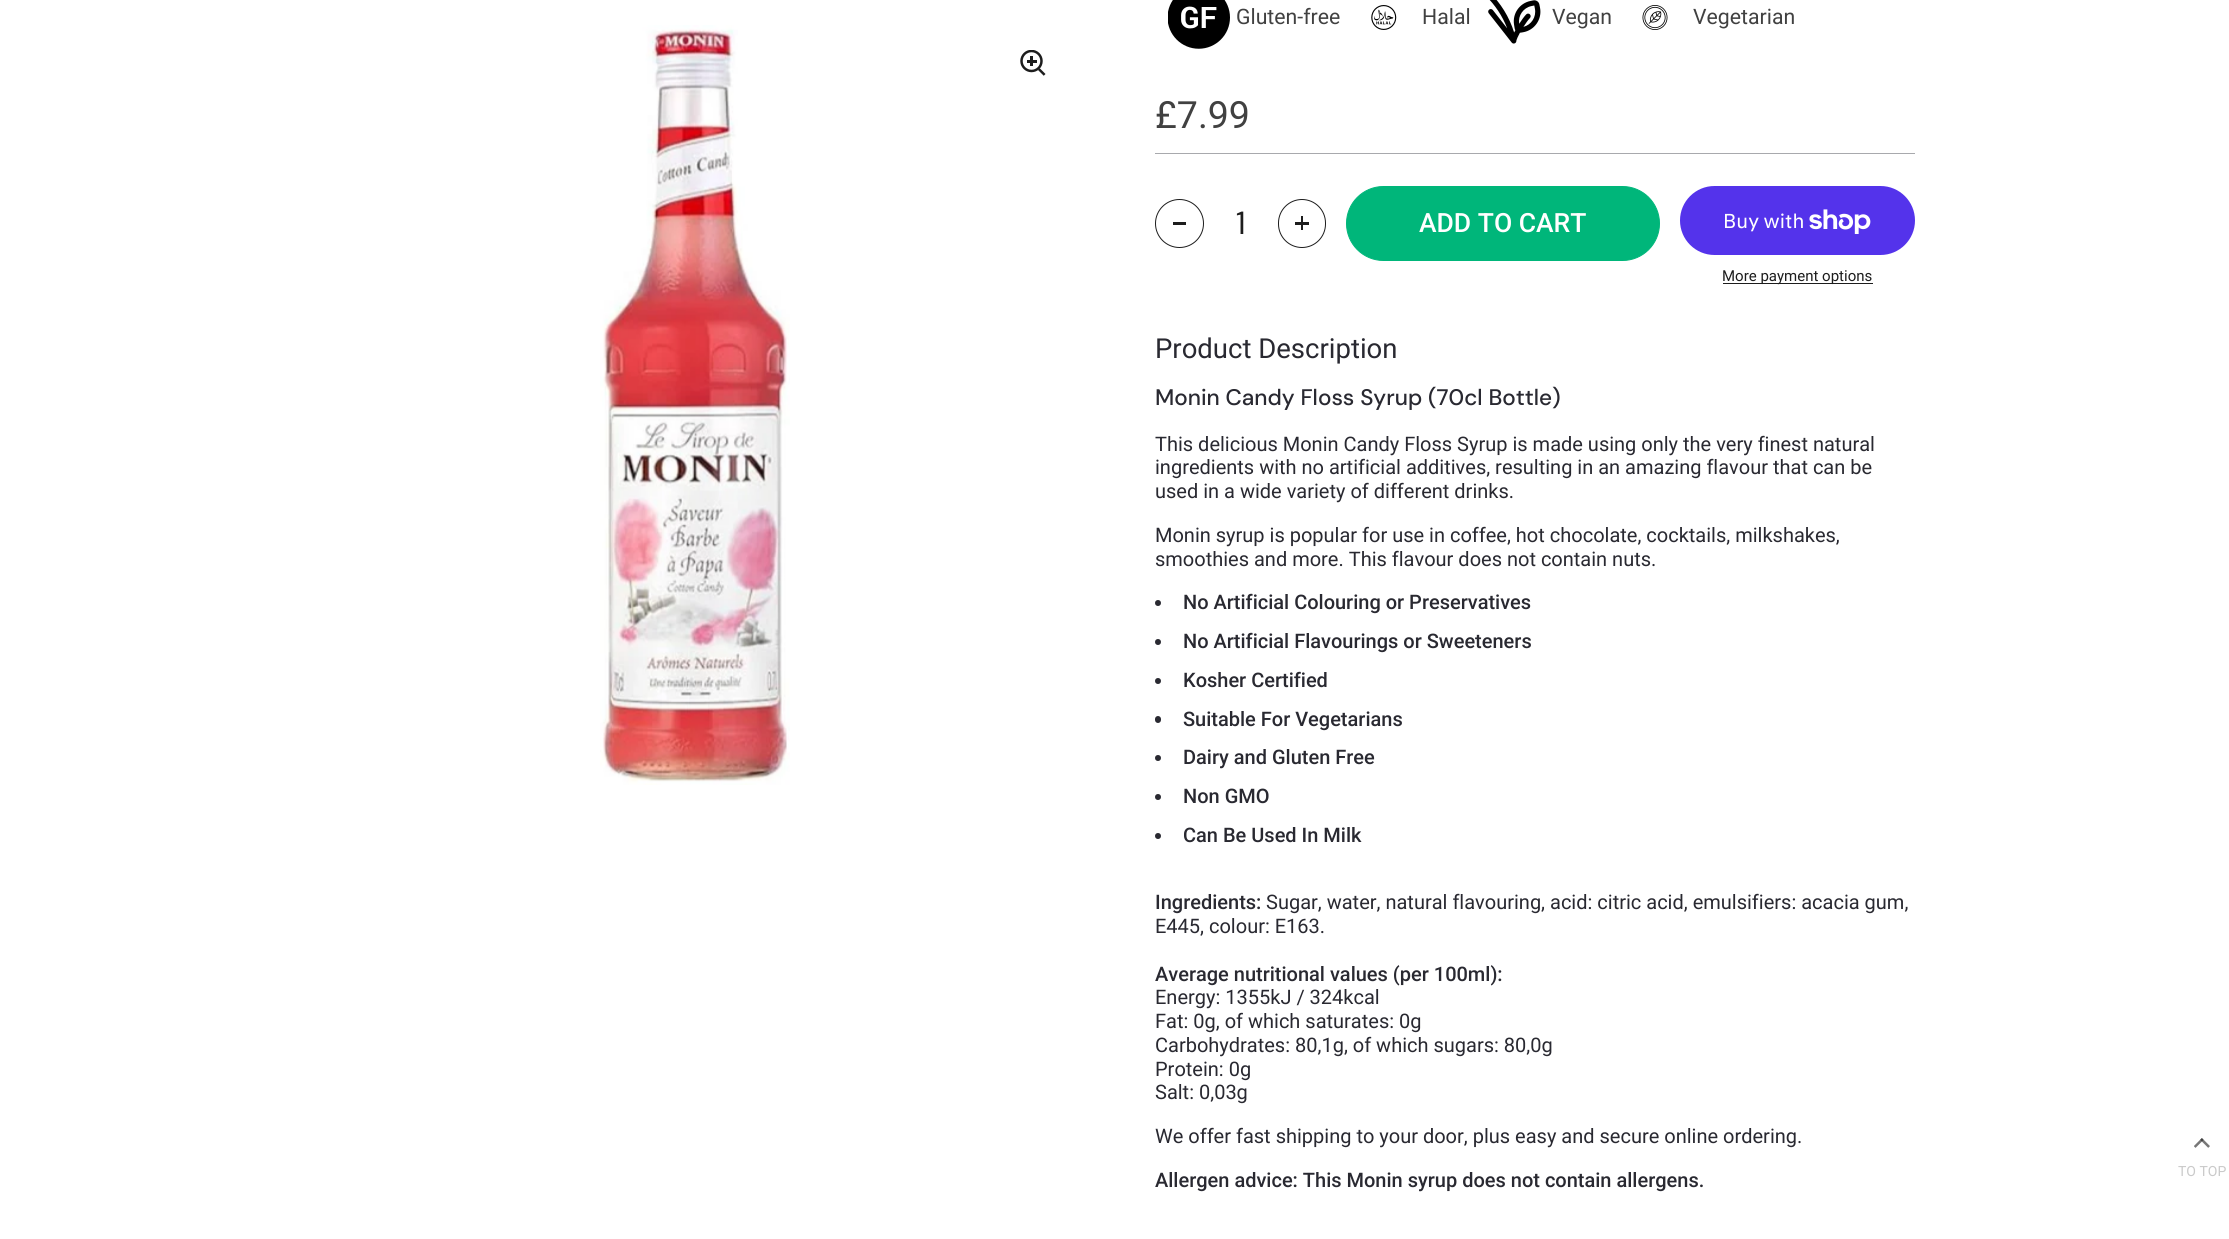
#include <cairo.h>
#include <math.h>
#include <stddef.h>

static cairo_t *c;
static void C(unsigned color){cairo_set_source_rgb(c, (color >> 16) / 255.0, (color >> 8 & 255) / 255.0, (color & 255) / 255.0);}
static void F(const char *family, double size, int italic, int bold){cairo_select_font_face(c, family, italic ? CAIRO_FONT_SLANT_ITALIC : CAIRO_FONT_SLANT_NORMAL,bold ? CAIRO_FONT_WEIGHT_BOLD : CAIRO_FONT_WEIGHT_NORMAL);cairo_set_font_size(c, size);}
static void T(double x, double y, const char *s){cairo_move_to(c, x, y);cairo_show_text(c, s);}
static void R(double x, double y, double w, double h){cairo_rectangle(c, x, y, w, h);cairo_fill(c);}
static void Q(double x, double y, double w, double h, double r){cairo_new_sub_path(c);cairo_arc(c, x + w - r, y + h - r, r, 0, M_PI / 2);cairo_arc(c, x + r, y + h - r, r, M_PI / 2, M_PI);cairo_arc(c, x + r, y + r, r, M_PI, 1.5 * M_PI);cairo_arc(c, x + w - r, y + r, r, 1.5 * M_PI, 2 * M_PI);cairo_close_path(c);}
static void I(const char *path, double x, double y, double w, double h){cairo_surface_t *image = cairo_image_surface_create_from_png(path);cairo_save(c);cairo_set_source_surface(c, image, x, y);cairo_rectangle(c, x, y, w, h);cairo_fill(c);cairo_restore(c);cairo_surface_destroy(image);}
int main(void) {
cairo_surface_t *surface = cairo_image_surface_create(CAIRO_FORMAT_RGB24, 2229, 1239);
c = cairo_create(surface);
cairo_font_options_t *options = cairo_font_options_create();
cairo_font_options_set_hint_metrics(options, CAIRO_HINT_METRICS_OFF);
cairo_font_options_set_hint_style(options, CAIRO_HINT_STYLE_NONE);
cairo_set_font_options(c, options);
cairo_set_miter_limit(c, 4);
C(0xffffff);
cairo_paint(c);
I("1.png",600,25,190,760);
I("2.png",1020,50,26,26);
I("3.png",1168,0,62,49);
F("Roboto",21.25,0,0);
C(0x414141);
T(1236,24,"Gluten-free");
I("4.png",1371,5,26,25);
T(1422,24,"Halal");
I("5.png",1488,0,53,44);
T(1552,24,"Vegan");
I("6.png",1642,5,26,25);
T(1693,24,"Vegetarian");
F("Roboto",37.5,0,0);
T(1155,128,"£7.99");
C(0xa8a9ad);
R(1155,153,760,1);
cairo_new_path(c);
cairo_arc(c,1179.5,223.5,24,0,2 * M_PI);
C(0x1d1d1d);
cairo_set_line_width(c,1);
cairo_stroke(c);
R(1173,222,13,3);
F("DM Sans",32,0,0);
T(1236,234,"1");
Q(1278.5,199.5,47,48,23.5);
cairo_stroke(c);
R(1301,216,2,14);
R(1295,222,14,3);
C(0x00b67a);
Q(1346.5,186.5,313,74,37);
cairo_fill_preserve(c);
cairo_stroke(c);
F("Roboto Medium",26.5,0,0);
C(0xffffff);
T(1419,232,"ADD TO CART");
C(0x5433eb);
Q(1680,186,235,69,34.5);
cairo_fill(c);
F("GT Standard",20,0,0);
C(0xffffff);
T(1723,228,"Buy with");
I("7.png",1809,209,62,25);
C(0x1d1d1d);
R(1723,283,150,1);
F("Roboto",15,0,0);
T(1722,281,"More payment options");
F("Roboto",27.5,0,0);
C(0x292931);
T(1155,358,"Product Description");
F("DM Sans Medium",22.5,0,0);
T(1155,405,"Monin Candy Floss Syrup (70cl Bottle)");
F("Roboto",20,0,0);
T(1155,451,"This delicious Monin Candy Floss Syrup is made using only the very finest natural");
T(1155,474,"ingredients with no artificial additives, resulting in an amazing flavour that can be");
T(1155,498,"used in a wide variety of different drinks.");
T(1155,542,"Monin syrup is popular for use in coffee, hot chocolate, cocktails, milkshakes,");
T(1155,566,"smoothies and more. This flavour does not contain nuts.");
cairo_new_path(c);
cairo_arc(c,1158,603,3,0,2 * M_PI);
cairo_fill(c);
F("Roboto Medium",20,0,0);
T(1183,609,"No Artificial Colouring or Preservatives");
cairo_new_path(c);
cairo_arc(c,1158,642,3,0,2 * M_PI);
cairo_fill(c);
T(1183,648,"No Artificial Flavourings or Sweeteners");
cairo_new_path(c);
cairo_arc(c,1158,681,3,0,2 * M_PI);
cairo_fill(c);
T(1183,687,"Kosher Certified");
Q(1155,716,6,7,3);
cairo_fill(c);
T(1183,726,"Suitable For Vegetarians");
cairo_new_path(c);
cairo_arc(c,1158,758,3,0,2 * M_PI);
cairo_fill(c);
T(1183,764,"Dairy and Gluten Free");
cairo_new_path(c);
cairo_arc(c,1158,797,3,0,2 * M_PI);
cairo_fill(c);
T(1183,803,"Non GMO");
cairo_new_path(c);
cairo_arc(c,1158,836,3,0,2 * M_PI);
cairo_fill(c);
T(1183,842,"Can Be Used In Milk");
T(1155,909,"Ingredients:");
F("Roboto",20,0,0);
T(1266,909,"Sugar, water, natural flavouring, acid: citric acid, emulsifiers: acacia gum,");
T(1155,933,"E445, colour: E163.");
F("Roboto Medium",20,0,0);
T(1155,981,"Average nutritional values (per 100ml):");
F("Roboto",20,0,0);
T(1155,1004,"Energy: 1355kJ / 324kcal");
T(1155,1028,"Fat: 0g, of which saturates: 0g");
T(1155,1052,"Carbohydrates: 80,1g, of which sugars: 80,0g");
T(1155,1076,"Protein: 0g");
T(1155,1099,"Salt: 0,03g");
T(1155,1143,"We offer fast shipping to your door, plus easy and secure online ordering.");
F("Roboto Medium",20,0,0);
T(1155,1187,"Allergen advice: This Monin syrup does not contain allergens.");
I("8.png",2194,1138,16,10);
F("Roboto",14,0,0);
C(0xcacaca);
T(2178,1176,"TO TOP");
cairo_surface_write_to_png(surface, "o.png");
cairo_font_options_destroy(options);
cairo_destroy(c);
cairo_surface_destroy(surface);
return 0;
}
